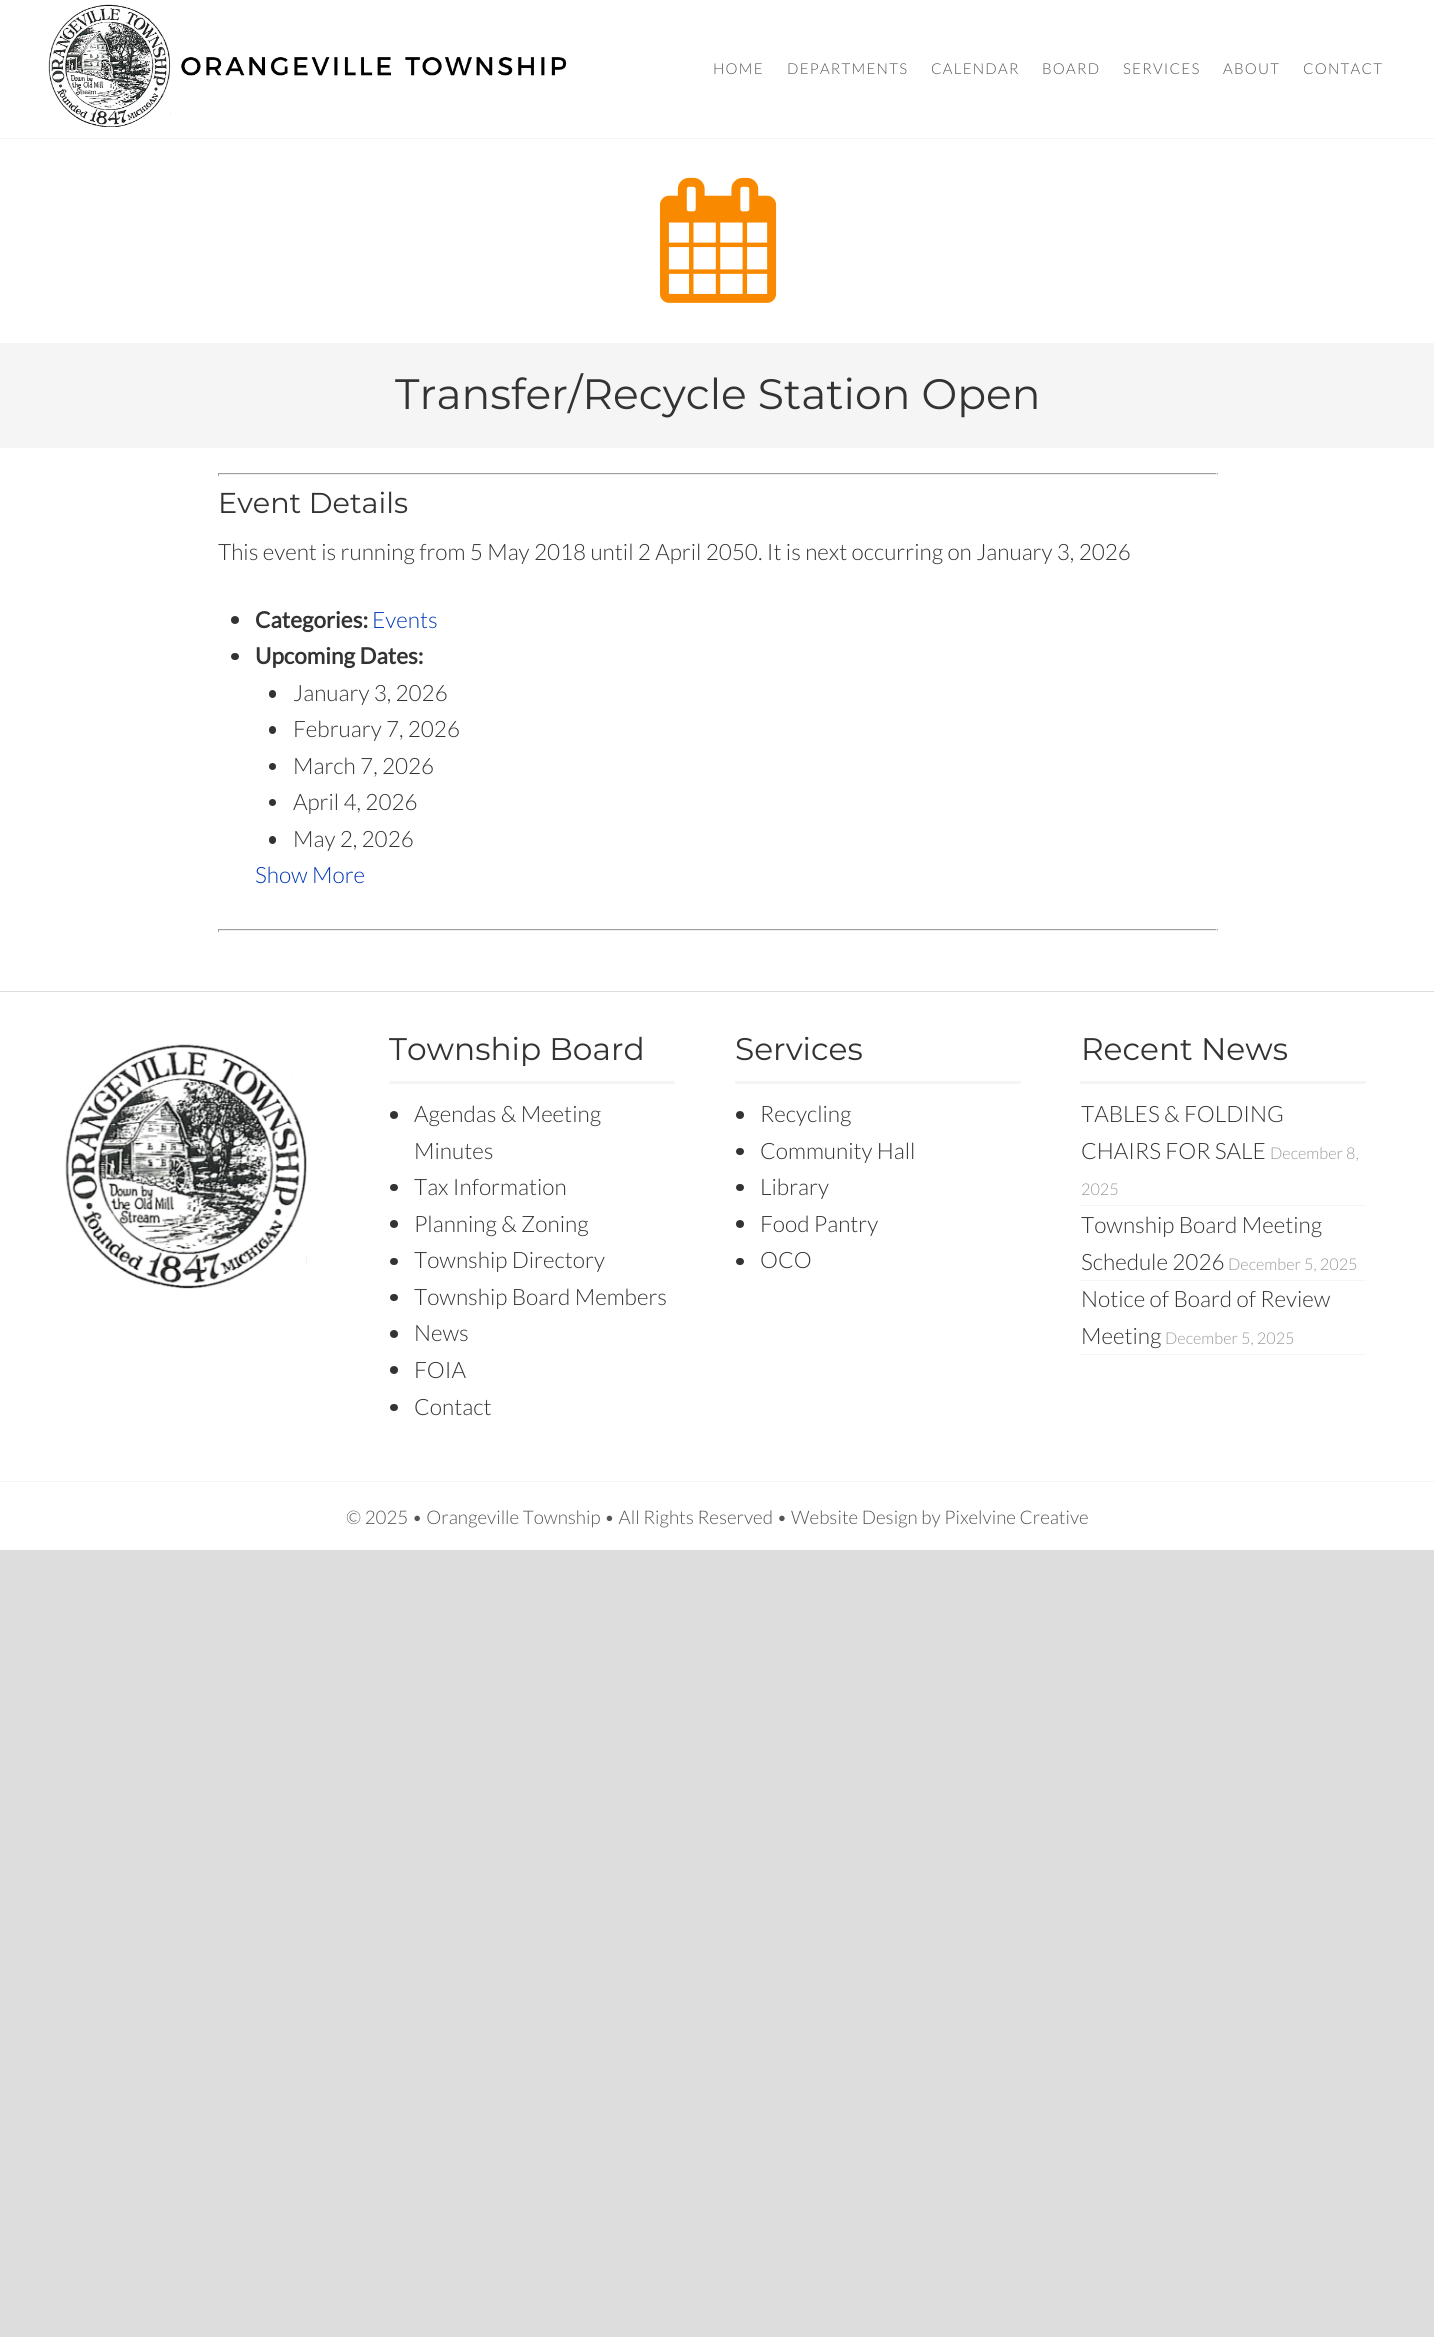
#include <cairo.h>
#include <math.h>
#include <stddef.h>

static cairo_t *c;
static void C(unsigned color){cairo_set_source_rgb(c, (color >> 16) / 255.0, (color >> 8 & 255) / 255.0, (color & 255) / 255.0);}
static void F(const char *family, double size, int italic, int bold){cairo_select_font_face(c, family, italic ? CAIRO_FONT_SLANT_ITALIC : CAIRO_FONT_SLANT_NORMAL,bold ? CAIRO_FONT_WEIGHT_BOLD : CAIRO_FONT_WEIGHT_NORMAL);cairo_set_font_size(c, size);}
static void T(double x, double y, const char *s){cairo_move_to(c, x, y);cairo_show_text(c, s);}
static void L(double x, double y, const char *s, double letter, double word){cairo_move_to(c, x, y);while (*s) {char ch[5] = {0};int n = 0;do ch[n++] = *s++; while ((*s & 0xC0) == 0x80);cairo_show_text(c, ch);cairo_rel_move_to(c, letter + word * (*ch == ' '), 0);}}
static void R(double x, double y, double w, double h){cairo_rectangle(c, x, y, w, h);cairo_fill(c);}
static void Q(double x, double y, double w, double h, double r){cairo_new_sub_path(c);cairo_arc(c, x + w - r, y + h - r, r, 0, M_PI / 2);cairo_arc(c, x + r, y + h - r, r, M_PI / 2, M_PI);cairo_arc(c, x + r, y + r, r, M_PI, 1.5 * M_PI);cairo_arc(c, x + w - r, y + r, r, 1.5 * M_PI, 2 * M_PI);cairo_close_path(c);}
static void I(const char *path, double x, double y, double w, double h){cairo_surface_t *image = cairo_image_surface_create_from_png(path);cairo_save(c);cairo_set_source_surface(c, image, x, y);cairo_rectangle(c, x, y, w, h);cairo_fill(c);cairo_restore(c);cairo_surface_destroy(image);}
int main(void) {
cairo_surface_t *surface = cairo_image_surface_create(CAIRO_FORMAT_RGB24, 1434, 2337);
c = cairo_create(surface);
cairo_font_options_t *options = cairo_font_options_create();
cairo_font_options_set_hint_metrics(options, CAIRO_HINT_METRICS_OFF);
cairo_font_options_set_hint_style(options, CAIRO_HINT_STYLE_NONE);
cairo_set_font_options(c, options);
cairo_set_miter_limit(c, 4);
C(0xdddddd);
cairo_paint(c);
C(0xffffff);
R(0,0,1434,1550);
C(0xf5f5f5);
R(0,138,1434,1);
I("1.png",48,4,519,123);
F("Lato Light",15,0,0);
C(0x555555);
L(713,74,"HOME",1.25,0);
L(787,74,"DEPARTMENTS",1.25,0);
L(931,74,"CALENDAR",1.25,0);
L(1042,74,"BOARD",1.25,0);
L(1123,74,"SERVICES",1.25,0);
L(1223,74,"ABOUT",1.25,0);
L(1303,74,"CONTACT",1.25,0);
C(0xf5f5f5);
R(0,343,1434,105);
I("2.png",660,177,117,126);
F("Montserrat",42.5,0,0);
C(0x333333);
T(395,409,"Transfer/Recycle Station Open");
C(0x9f9f9f);
R(218,473,1000,1);
C(0xeeeeee);
R(1216,473,1,3);
R(218,474,1000,1);
C(0x9f9f9f);
R(218,473,1,3);
F("Montserrat",28.75,0,0);
C(0x333333);
T(218,513,"Event Details");
F("Lato Light",22.5,0,0);
T(218,560,"This event is running from 5 May 2018 until 2 April 2050. It is next occurring on January 3, 2026");
cairo_new_path(c);
cairo_arc(c,235,620,4,0,2 * M_PI);
cairo_fill(c);
F("Lato",22.5,0,1);
T(255,628,"Categories:");
F("Lato Light",22.5,0,0);
C(0x0037b4);
T(372,628,"Events");
C(0x333333);
Q(231,653,8,7,3.5);
cairo_fill(c);
F("Lato",22.5,0,1);
T(255,664,"Upcoming Dates:");
Q(269,690,7,8,3.5);
cairo_fill(c);
F("Lato Light",22.5,0,0);
T(293,701,"January 3, 2026");
Q(269,726,7,8,3.5);
cairo_fill(c);
T(293,737,"February 7, 2026");
cairo_new_path(c);
cairo_arc(c,272.5,766.5,3.5,0,2 * M_PI);
cairo_fill(c);
T(293,774,"March 7, 2026");
cairo_new_path(c);
cairo_arc(c,272.5,802.5,3.5,0,2 * M_PI);
cairo_fill(c);
T(293,810,"April 4, 2026");
Q(269,836,7,8,3.5);
cairo_fill(c);
T(293,847,"May 2, 2026");
C(0x0037b4);
T(255,883,"Show More");
C(0x9f9f9f);
R(218,929,1000,1);
C(0xeeeeee);
R(1216,929,1,3);
R(218,930,1000,1);
C(0x9f9f9f);
R(218,929,1,3);
C(0xdddddd);
R(0,991,1434,1);
I("3.png",65,1044,242,245);
C(0xf5f5f5);
R(389,1081,286,3);
F("Montserrat",31.25,0,0);
C(0x333333);
T(389,1060,"Township Board");
cairo_new_path(c);
cairo_arc(c,394,1115,4,0,2 * M_PI);
cairo_fill(c);
F("Lato Light",22.5,0,0);
T(414,1122,"Agendas & Meeting");
T(414,1159,"Minutes");
Q(390,1184,8,7,3.5);
cairo_fill(c);
T(414,1195,"Tax Information");
cairo_new_path(c);
cairo_arc(c,394,1224,4,0,2 * M_PI);
cairo_fill(c);
T(414,1232,"Planning & Zoning");
Q(390,1258,8,7,3.5);
cairo_fill(c);
T(414,1268,"Township Directory");
Q(390,1294,8,7,3.5);
cairo_fill(c);
T(414,1305,"Township Board Members");
cairo_new_path(c);
cairo_arc(c,394,1334,4,0,2 * M_PI);
cairo_fill(c);
T(414,1341,"News");
cairo_new_path(c);
cairo_arc(c,394,1370,4,0,2 * M_PI);
cairo_fill(c);
T(414,1378,"FOIA");
Q(390,1404,8,7,3.5);
cairo_fill(c);
T(414,1415,"Contact");
C(0xf5f5f5);
R(735,1081,286,3);
F("Montserrat",31.25,0,0);
C(0x333333);
T(735,1060,"Services");
cairo_new_path(c);
cairo_arc(c,740,1115,4,0,2 * M_PI);
cairo_fill(c);
F("Lato Light",22.5,0,0);
T(760,1122,"Recycling");
Q(736,1148,8,7,3.5);
cairo_fill(c);
T(760,1159,"Community Hall");
Q(736,1184,8,7,3.5);
cairo_fill(c);
T(760,1195,"Library");
cairo_new_path(c);
cairo_arc(c,740,1224,4,0,2 * M_PI);
cairo_fill(c);
T(760,1232,"Food Pantry");
Q(736,1258,8,7,3.5);
cairo_fill(c);
T(760,1268,"OCO");
C(0xf5f5f5);
R(1080,1081,286,3);
F("Montserrat",31.25,0,0);
C(0x333333);
T(1081,1060,"Recent News");
C(0xf5f5f5);
R(1080,1205,286,1);
F("Lato Light",22.5,0,0);
C(0x333333);
T(1081,1122,"TABLES & FOLDING");
T(1081,1159,"CHAIRS FOR SALE");
F("Lato Light",16.25,0,0);
C(0x999999);
T(1270,1159,"December 8,");
T(1081,1195,"2025");
C(0xf5f5f5);
R(1080,1280,286,1);
F("Lato Light",22.5,0,0);
C(0x333333);
T(1081,1233,"Township Board Meeting");
T(1081,1270,"Schedule 2026");
F("Lato Light",16.25,0,0);
C(0x999999);
T(1228,1270,"December 5, 2025");
C(0xf5f5f5);
R(1080,1354,286,1);
F("Lato Light",22.5,0,0);
C(0x333333);
T(1081,1307,"Notice of Board of Review");
T(1081,1344,"Meeting");
F("Lato Light",16.25,0,0);
C(0x999999);
T(1165,1344,"December 5, 2025");
C(0xf5f5f5);
R(0,1481,1434,1);
F("Lato Light",18.75,0,0);
C(0x555555);
T(346,1524,"© 2025 • Orangeville Township • All Rights Reserved • Website Design by Pixelvine Creative");
cairo_surface_write_to_png(surface, "o.png");
cairo_font_options_destroy(options);
cairo_destroy(c);
cairo_surface_destroy(surface);
return 0;
}
